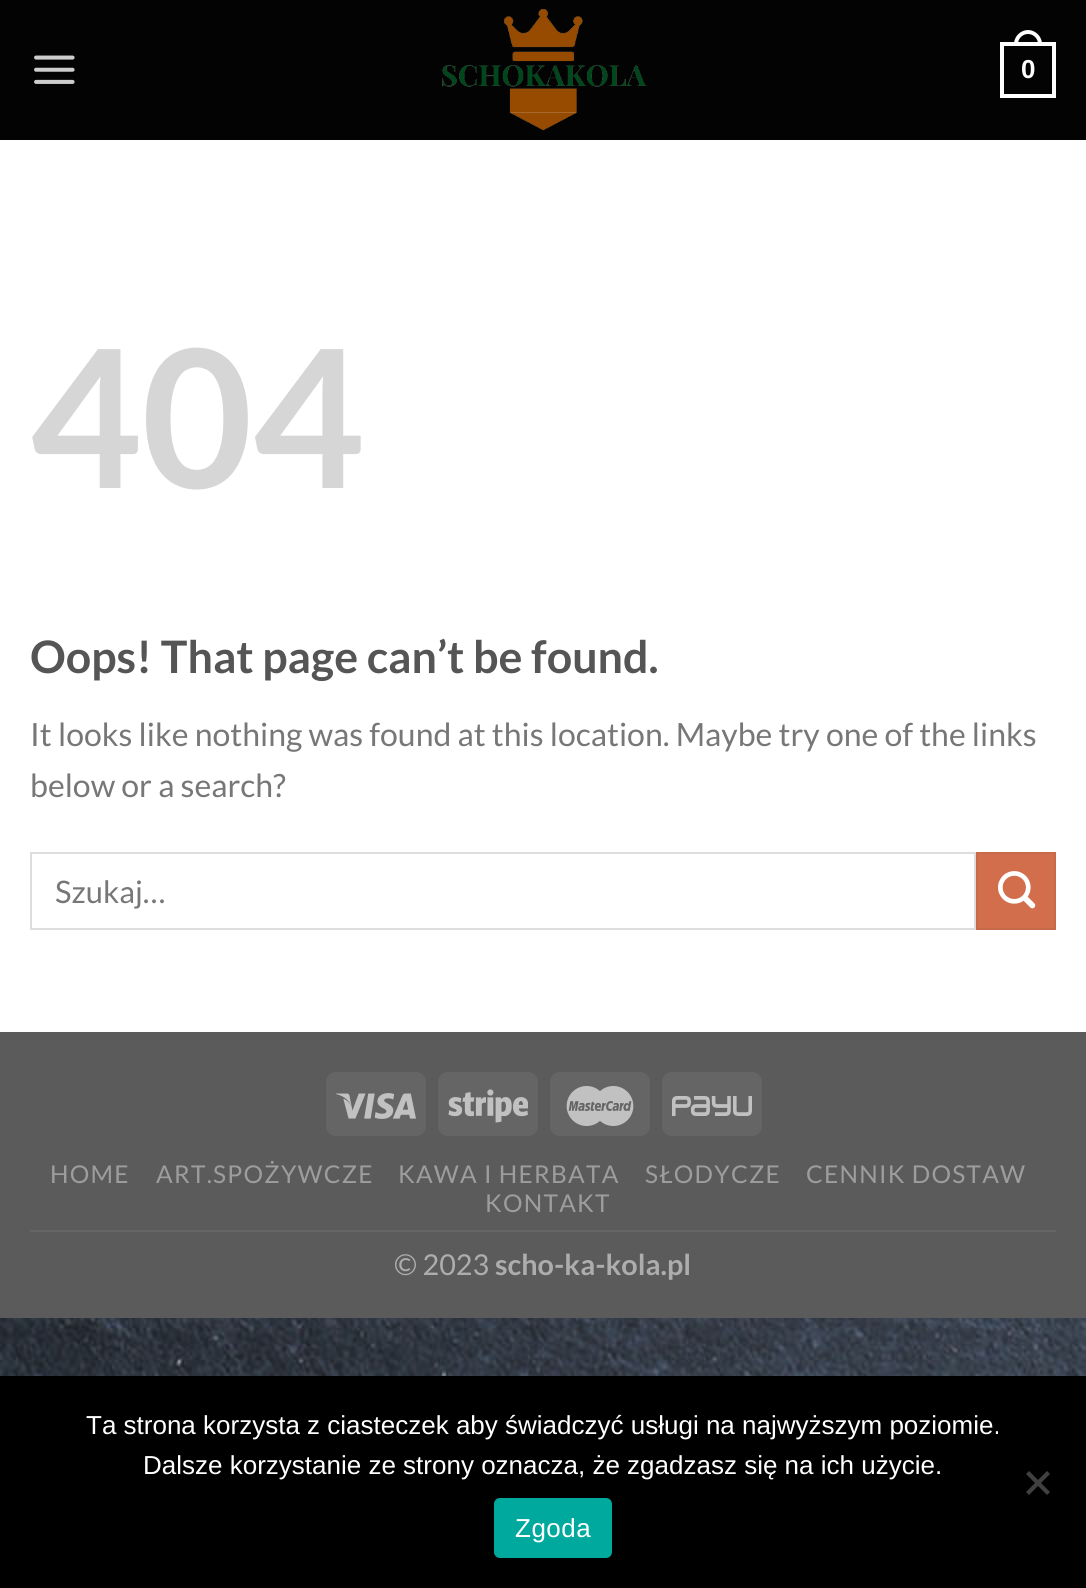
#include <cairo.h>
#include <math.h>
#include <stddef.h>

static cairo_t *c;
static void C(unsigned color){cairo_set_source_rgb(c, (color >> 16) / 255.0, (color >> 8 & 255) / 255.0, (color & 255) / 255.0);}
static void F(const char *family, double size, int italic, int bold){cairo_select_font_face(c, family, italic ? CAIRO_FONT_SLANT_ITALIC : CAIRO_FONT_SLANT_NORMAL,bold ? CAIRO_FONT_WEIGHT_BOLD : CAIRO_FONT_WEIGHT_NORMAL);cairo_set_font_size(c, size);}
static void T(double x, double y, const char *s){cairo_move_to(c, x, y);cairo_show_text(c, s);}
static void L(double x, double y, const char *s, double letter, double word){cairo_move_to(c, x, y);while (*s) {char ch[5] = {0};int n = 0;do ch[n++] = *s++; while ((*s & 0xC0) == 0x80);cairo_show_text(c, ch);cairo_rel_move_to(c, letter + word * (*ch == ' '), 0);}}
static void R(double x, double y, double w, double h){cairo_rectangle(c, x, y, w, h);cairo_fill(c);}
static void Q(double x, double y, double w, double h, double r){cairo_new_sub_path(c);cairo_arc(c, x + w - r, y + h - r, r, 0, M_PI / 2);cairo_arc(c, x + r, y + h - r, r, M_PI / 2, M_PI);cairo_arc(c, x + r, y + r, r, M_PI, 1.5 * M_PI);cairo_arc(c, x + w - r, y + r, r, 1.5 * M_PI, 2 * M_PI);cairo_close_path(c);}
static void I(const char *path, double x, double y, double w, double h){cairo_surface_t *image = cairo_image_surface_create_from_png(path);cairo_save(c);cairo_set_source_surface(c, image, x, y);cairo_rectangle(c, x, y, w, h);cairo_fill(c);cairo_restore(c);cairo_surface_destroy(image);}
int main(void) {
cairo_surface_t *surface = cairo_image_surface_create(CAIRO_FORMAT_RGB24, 1086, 1588);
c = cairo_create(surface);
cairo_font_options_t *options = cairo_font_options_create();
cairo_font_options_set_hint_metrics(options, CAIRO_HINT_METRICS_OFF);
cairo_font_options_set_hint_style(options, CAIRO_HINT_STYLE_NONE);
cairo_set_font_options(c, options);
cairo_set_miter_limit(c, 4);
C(0xffffff);
cairo_paint(c);
I("1.png",0,1318,1086,58);
C(0x030303);
R(0,0,1086,140);
I("2.png",34,55,41,29);
I("3.png",442,9,205,122);
cairo_rectangle(c,1002,44,52,52);
C(0xffffff);
cairo_set_line_width(c,4);
cairo_stroke(c);
cairo_set_fill_rule(c,CAIRO_FILL_RULE_EVEN_ODD);
cairo_new_path(c);
cairo_move_to(c,1028,30);
cairo_curve_to(c,1035.5,30,1042,36.5,1042,44);
cairo_line_to(c,1042,46);
cairo_line_to(c,1014,46);
cairo_line_to(c,1014,44);
cairo_curve_to(c,1014,36.5,1020.5,30,1028,30);
cairo_close_path(c);
cairo_move_to(c,1028,34);
cairo_curve_to(c,1033.5,34,1038,38.5,1038,44);
cairo_line_to(c,1038,46);
cairo_line_to(c,1018,46);
cairo_line_to(c,1018,44);
cairo_curve_to(c,1018,38.5,1022.5,34,1028,34);
cairo_close_path(c);
cairo_fill(c);
F("Liberation Sans",26,0,1);
T(1021,78,"0");
F("Lato",192,0,1);
C(0xd6d6d6);
T(30,488,"404");
F("Lato",44.75,0,1);
C(0x555555);
T(30,673,"Oops! That page can’t be found.");
F("Lato",32,0,0);
C(0x777777);
T(30,746,"It looks like nothing was found at this location. Maybe try one of the links");
T(30,797,"below or a search?");
cairo_rectangle(c,31,853,944,76);
C(0xdddddd);
cairo_set_line_width(c,2);
cairo_stroke(c);
F("Lato",31,0,0);
C(0x777777);
T(55,903,"Szukaj…");
C(0xd26e4b);
cairo_rectangle(c,977,853,78,76);
cairo_fill_preserve(c);
C(0xc86947);
cairo_stroke(c);
I("4.png",998,871,38,38);
C(0x5b5b5b);
R(0,1032,1086,286);
C(0x656565);
Q(326,1072,100,64,10);
cairo_fill(c);
I("5.png",336,1093,80,26);
Q(438,1072,100,64,10);
cairo_fill(c);
I("6.png",448,1089,80,34);
Q(550,1072,100,64,10);
cairo_fill(c);
I("7.png",566,1086,68,40);
Q(662,1072,100,64,10);
cairo_fill(c);
I("8.png",672,1096,80,20);
R(30,1230,1026,2);
F("Lato",24.5,0,0);
C(0x9d9d9d);
L(50,1183,"HOME",1.25,0);
L(156,1183,"ART.SPOŻYWCZE",1.25,0);
L(398,1183,"KAWA I HERBATA",1.25,0);
L(645,1183,"SŁODYCZE",1.25,0);
L(806,1183,"CENNIK DOSTAW",1.25,0);
L(485,1212,"KONTAKT",1.25,0);
F("Lato",28.75,0,0);
C(0xadadad);
T(394,1275,"© 2023");
F("Lato",28.75,0,1);
T(495,1275,"scho-ka-kola.pl");
C(0x000000);
R(0,1376,1086,212);
F("Liberation Sans",26,0,0);
C(0xffffff);
T(86,1434,"Ta strona korzysta z ciasteczek aby świadczyć usługi na najwyższym poziomie.");
T(143,1474,"Dalsze korzystanie ze strony oznacza, że zgadzasz się na ich użycie.");
C(0x404040);
cairo_set_fill_rule(c,CAIRO_FILL_RULE_WINDING);
cairo_new_path(c);
cairo_move_to(c,1047,1471);
cairo_line_to(c,1050,1474);
cairo_line_to(c,1029,1495);
cairo_line_to(c,1026,1492);
cairo_close_path(c);
cairo_fill(c);
cairo_new_path(c);
cairo_move_to(c,1026,1474);
cairo_line_to(c,1029,1471);
cairo_line_to(c,1050,1492);
cairo_line_to(c,1047,1495);
cairo_close_path(c);
cairo_fill(c);
C(0x00a99d);
Q(494,1498,118,60,6);
cairo_fill(c);
C(0xffffff);
L(515,1537,"Zgoda",.5,0);
cairo_surface_write_to_png(surface, "o.png");
cairo_font_options_destroy(options);
cairo_destroy(c);
cairo_surface_destroy(surface);
return 0;
}
